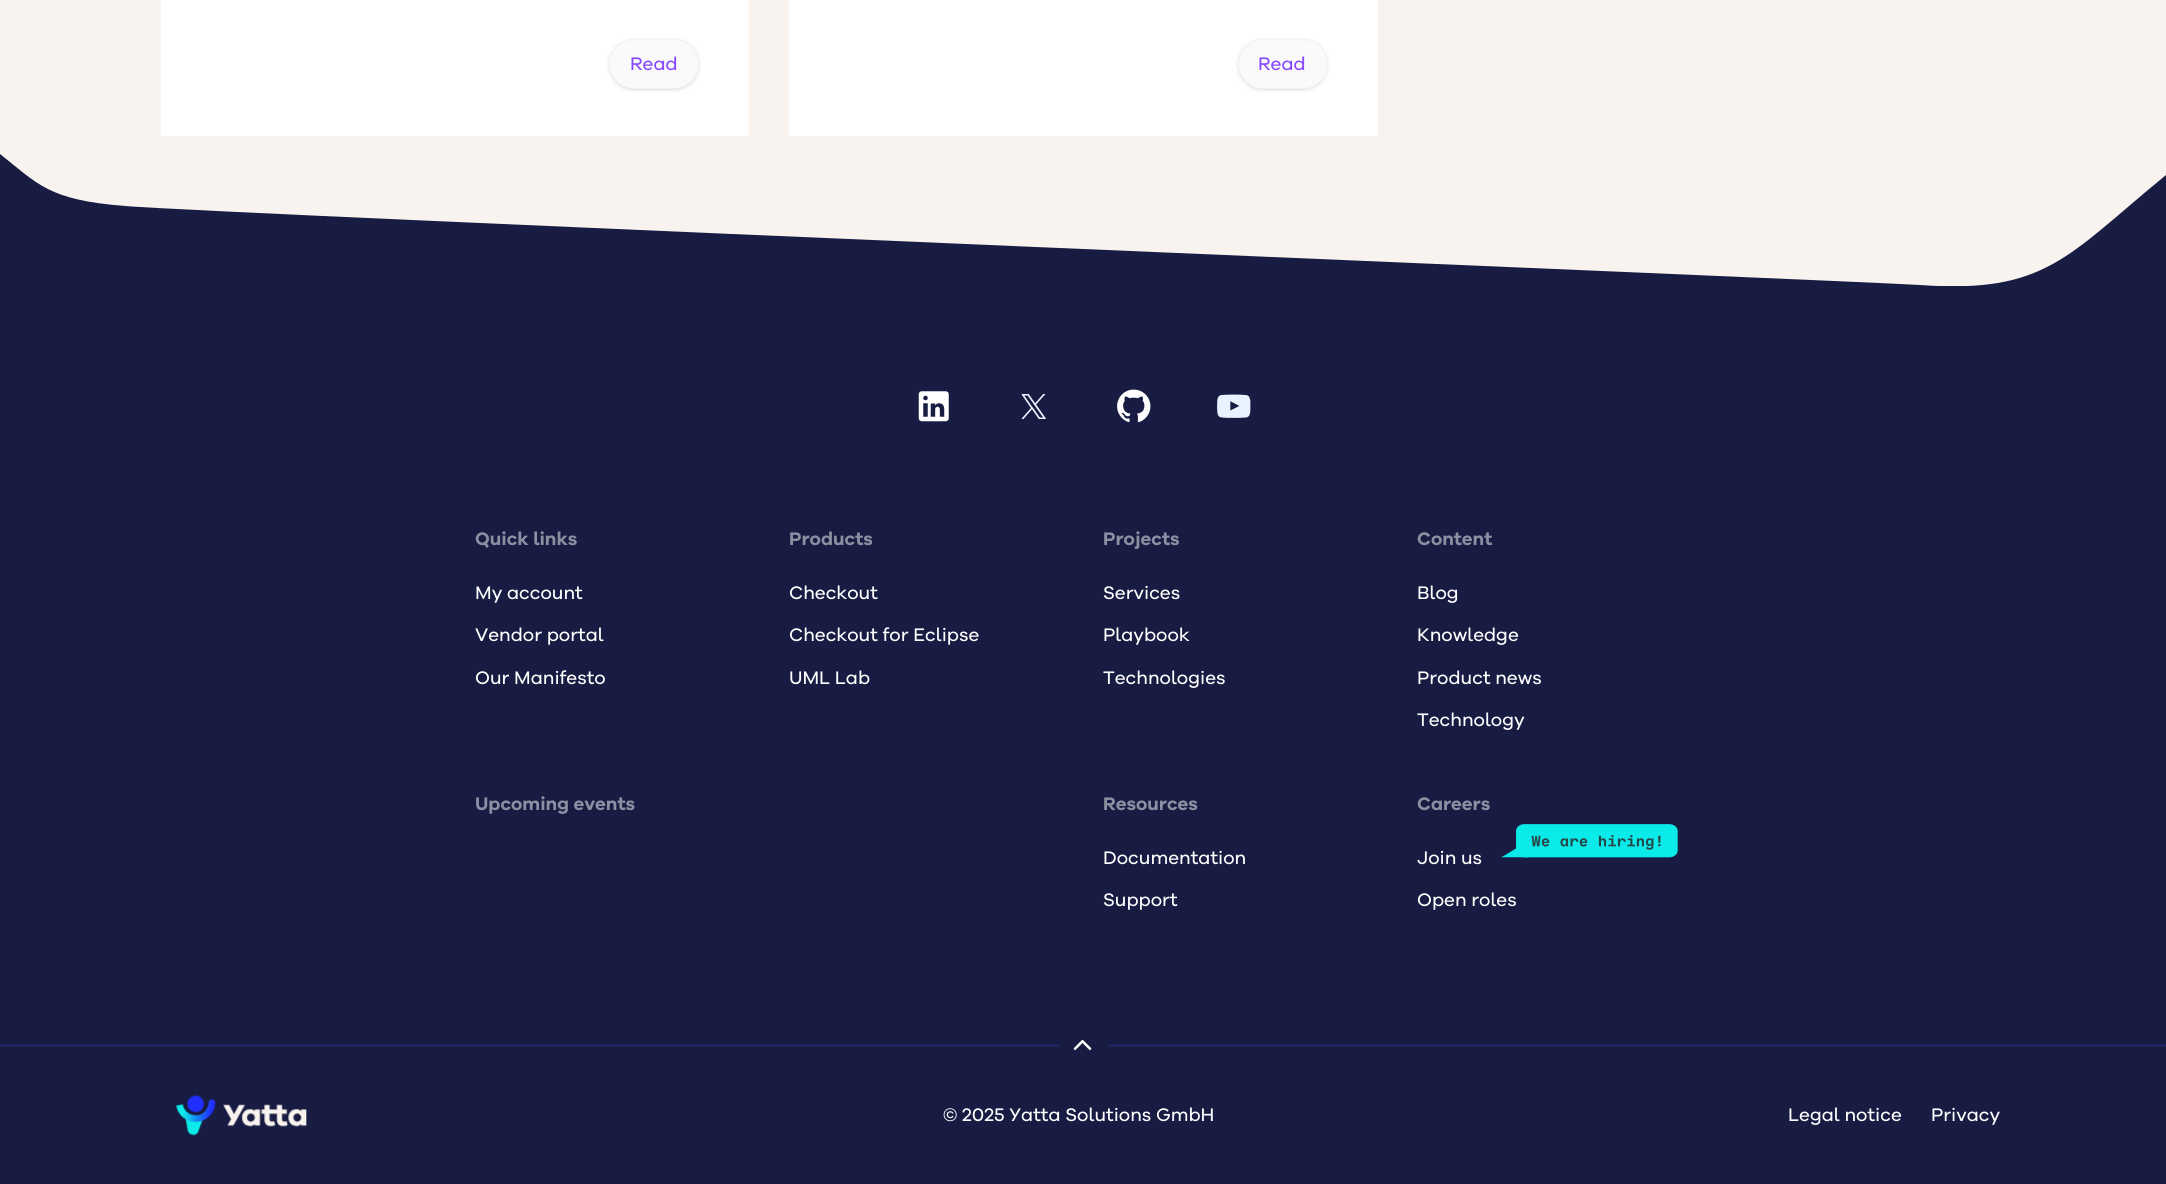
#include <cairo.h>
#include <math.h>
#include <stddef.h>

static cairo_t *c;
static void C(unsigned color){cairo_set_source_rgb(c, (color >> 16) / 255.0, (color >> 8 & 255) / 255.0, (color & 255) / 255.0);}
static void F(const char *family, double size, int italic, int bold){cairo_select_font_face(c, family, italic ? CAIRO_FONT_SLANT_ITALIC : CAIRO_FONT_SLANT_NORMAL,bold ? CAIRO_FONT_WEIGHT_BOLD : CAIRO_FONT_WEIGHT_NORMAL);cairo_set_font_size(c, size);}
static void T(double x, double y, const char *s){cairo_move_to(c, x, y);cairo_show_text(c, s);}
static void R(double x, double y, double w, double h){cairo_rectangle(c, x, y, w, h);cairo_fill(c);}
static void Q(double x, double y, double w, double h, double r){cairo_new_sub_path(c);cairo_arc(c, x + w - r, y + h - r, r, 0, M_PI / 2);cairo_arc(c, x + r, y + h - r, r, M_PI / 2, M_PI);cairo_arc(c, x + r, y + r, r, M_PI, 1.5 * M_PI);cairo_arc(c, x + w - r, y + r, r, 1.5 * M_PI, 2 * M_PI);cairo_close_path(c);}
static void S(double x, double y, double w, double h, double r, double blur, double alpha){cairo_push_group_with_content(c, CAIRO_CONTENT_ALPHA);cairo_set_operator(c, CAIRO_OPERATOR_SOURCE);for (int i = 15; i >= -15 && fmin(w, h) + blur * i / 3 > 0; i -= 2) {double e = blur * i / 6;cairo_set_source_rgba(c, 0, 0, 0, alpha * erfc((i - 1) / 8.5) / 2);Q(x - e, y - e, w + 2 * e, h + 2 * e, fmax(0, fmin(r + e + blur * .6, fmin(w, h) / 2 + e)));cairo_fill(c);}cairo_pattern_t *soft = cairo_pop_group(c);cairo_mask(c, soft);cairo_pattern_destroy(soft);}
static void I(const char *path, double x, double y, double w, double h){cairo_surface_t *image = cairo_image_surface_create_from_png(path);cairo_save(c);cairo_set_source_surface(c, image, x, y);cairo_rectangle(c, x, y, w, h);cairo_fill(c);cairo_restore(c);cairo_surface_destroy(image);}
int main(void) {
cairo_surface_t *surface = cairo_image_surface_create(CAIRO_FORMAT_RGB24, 2166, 1184);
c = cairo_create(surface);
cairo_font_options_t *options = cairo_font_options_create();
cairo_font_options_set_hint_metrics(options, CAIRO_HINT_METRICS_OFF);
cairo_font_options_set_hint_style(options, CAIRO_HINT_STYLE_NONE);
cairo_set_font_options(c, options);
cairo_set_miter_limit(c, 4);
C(0x181c42);
cairo_paint(c);
C(0xf8f3ee);
R(0,0,2166,136);
C(0xffffff);
R(161,0,588,136);
C(0x000000);
S(610,41,88,48,24,1,.1);
S(609,40,90,50,25,2,.1);
C(0xfafafa);
Q(609.5,39.5,89,49,24.5);
cairo_fill_preserve(c);
C(0xf2f2f2);
cairo_set_line_width(c,1);
cairo_stroke(c);
F("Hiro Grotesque",18.75,0,0);
C(0x8649ff);
T(630,70,"Read");
C(0xffffff);
R(789,0,589,136);
C(0x000000);
S(1239,41,87,48,24,1,.1);
S(1238,40,90,50,25,2,.1);
C(0xfafafa);
Q(1238.5,39.5,89,49,24.5);
cairo_fill_preserve(c);
C(0xf2f2f2);
cairo_stroke(c);
C(0x8649ff);
T(1258,70,"Read");
cairo_save(c);
cairo_rectangle(c,0,136,2166,150);
cairo_clip(c);
C(0xf8f3ee);
cairo_new_path(c);
cairo_move_to(c,0,136);
cairo_line_to(c,2166,136);
cairo_line_to(c,2166,175);
cairo_curve_to(c,2067,256,2046,294,1920,285);
cairo_curve_to(c,1836,280,221,214,125,206);
cairo_curve_to(c,48,200,38,184,0,154);
cairo_close_path(c);
cairo_fill(c);
cairo_restore(c);
I("1.png",918,391,31,31);
I("2.png",1021,394,25,25);
I("3.png",1117,389,34,34);
I("4.png",1217,394,34,24);
F("Hiro Grotesque",18.75,0,1);
C(0x8c8ea1);
T(475,545,"Quick links");
F("Hiro Grotesque",18.75,0,0);
C(0xffffff);
T(475,599,"My account");
T(475,641,"Vendor portal");
T(475,684,"Our Manifesto");
F("Hiro Grotesque",18.75,0,1);
C(0x8c8ea1);
T(789,545,"Products");
F("Hiro Grotesque",18.75,0,0);
C(0xffffff);
T(789,599,"Checkout");
T(789,641,"Checkout for Eclipse");
T(789,684,"UML Lab");
F("Hiro Grotesque",18.75,0,1);
C(0x8c8ea1);
T(1103,545,"Projects");
F("Hiro Grotesque",18.75,0,0);
C(0xffffff);
T(1103,599,"Services");
T(1103,641,"Playbook");
T(1103,684,"Technologies");
F("Hiro Grotesque",18.75,0,1);
C(0x8c8ea1);
T(1417,545,"Content");
F("Hiro Grotesque",18.75,0,0);
C(0xffffff);
T(1417,599,"Blog");
T(1417,641,"Knowledge");
T(1417,684,"Product news");
T(1417,726,"Technology");
F("Hiro Grotesque",18.75,0,1);
C(0x8c8ea1);
T(475,810,"Upcoming events");
T(1103,810,"Resources");
F("Hiro Grotesque",18.75,0,0);
C(0xffffff);
T(1103,864,"Documentation");
T(1103,906,"Support");
F("Hiro Grotesque",18.75,0,1);
C(0x8c8ea1);
T(1417,810,"Careers");
F("Hiro Grotesque",18.75,0,0);
C(0xffffff);
T(1417,864,"Join us");
I("5.png",1501,824,177,34);
T(1417,906,"Open roles");
C(0x1e245e);
R(0,1044,1059,3);
I("6.png",1073,1040,19,10);
R(1109,1044,1057,3);
I("7.png",176,1095,131,41);
C(0xffffff);
T(943,1121,"© 2025 Yatta Solutions GmbH");
T(1788,1121,"Legal notice");
T(1931,1121,"Privacy");
cairo_surface_write_to_png(surface, "o.png");
cairo_font_options_destroy(options);
cairo_destroy(c);
cairo_surface_destroy(surface);
return 0;
}
